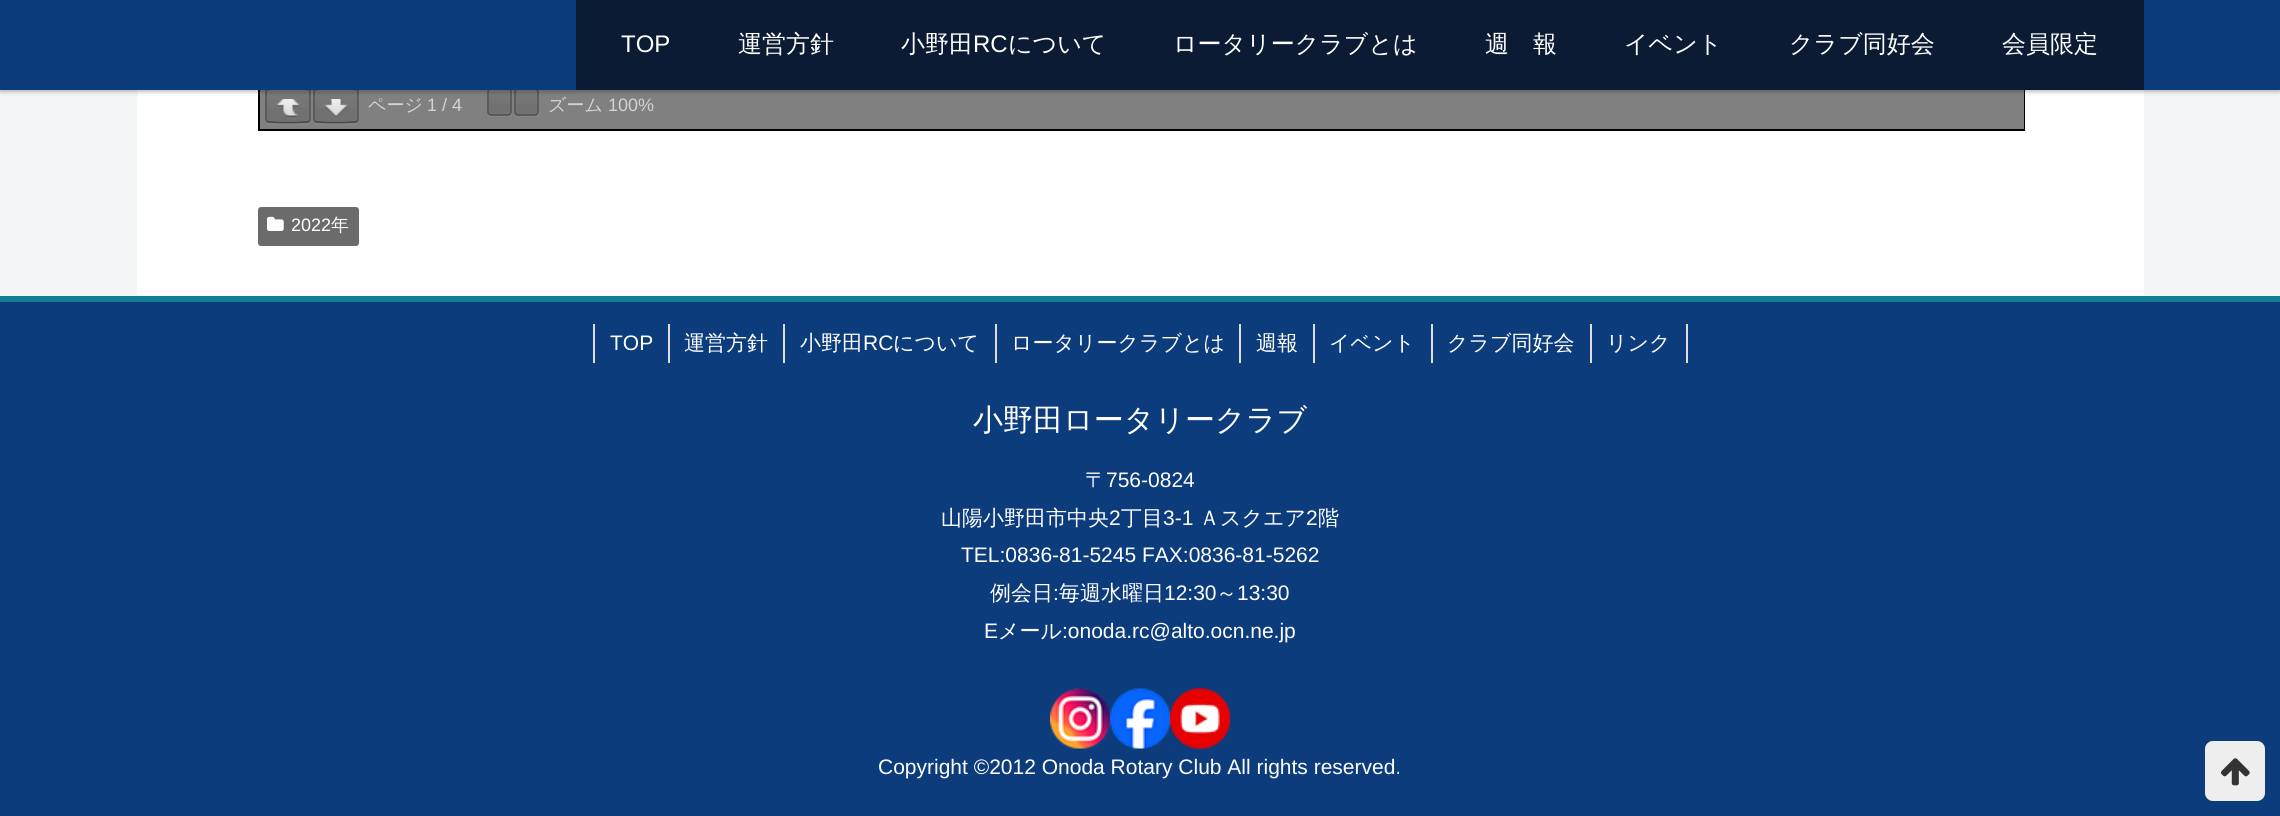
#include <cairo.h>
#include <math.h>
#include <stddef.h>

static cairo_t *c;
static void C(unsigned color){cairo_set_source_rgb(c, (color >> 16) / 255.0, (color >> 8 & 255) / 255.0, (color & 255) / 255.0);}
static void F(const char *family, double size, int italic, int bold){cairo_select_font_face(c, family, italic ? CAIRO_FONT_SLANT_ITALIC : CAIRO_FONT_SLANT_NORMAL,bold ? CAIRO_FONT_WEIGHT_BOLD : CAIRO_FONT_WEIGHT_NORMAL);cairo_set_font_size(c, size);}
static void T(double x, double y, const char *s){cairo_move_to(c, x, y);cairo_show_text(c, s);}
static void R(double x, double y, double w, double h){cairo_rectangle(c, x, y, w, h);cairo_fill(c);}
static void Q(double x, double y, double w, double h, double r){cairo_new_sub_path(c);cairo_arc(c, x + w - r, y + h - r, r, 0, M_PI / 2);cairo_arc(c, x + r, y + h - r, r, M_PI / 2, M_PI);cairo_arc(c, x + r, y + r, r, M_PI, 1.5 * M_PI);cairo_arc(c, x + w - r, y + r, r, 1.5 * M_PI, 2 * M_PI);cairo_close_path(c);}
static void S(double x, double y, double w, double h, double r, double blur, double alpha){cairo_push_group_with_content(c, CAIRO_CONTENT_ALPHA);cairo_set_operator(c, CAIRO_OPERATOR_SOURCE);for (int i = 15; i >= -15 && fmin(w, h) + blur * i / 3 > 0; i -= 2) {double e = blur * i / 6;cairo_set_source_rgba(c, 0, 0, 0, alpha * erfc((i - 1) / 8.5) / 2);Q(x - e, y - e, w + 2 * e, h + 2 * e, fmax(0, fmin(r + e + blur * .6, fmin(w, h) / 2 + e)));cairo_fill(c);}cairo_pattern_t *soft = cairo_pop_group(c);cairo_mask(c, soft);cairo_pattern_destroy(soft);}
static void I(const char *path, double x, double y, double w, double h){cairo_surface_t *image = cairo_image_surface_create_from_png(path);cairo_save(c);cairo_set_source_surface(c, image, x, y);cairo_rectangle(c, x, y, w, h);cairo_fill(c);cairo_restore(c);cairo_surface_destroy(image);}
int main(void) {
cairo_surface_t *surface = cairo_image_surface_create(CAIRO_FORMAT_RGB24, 2280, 816);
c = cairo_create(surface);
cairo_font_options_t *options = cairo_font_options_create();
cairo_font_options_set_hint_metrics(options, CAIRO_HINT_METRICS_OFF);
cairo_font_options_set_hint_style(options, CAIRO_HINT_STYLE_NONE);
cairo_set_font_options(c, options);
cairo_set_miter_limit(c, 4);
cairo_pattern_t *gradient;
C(0xf4f5f7);
cairo_paint(c);
C(0xffffff);
R(137,90,2007,206);
cairo_rectangle(c,259,-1,1765,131);
C(0x000000);
cairo_stroke(c);
C(0x808080);
R(260,90,1764,39);
C(0x868686);
cairo_new_path(c);
cairo_move_to(c,266,122);
cairo_curve_to(c,266,123,267,125,268,125);
cairo_line_to(c,295,125);
cairo_curve_to(c,315,125,311,128,311,108);
cairo_curve_to(c,311,105,312,94,310,91);
cairo_line_to(c,310,115);
cairo_curve_to(c,310,124,310,123,301,123);
cairo_line_to(c,275,123);
cairo_curve_to(c,273,123,268,124,266,122);
cairo_close_path(c);
cairo_fill(c);
C(0x717171);
Q(267,90,42,32,1.5);
cairo_fill(c);
gradient = cairo_pattern_create_linear(288,90,288,122);
cairo_pattern_add_color_stop_rgba(gradient,0,1,1,1,.05);
cairo_pattern_add_color_stop_rgba(gradient,1,1,1,1,0);
cairo_set_source(c,gradient);
cairo_pattern_destroy(gradient);
R(267,90,42,18);
C(0x7f7f7f);
cairo_new_path(c);
cairo_move_to(c,268,92);
cairo_line_to(c,308,92);
cairo_line_to(c,309,93);
cairo_curve_to(c,309,88,306,90,301,90);
cairo_line_to(c,275,90);
cairo_curve_to(c,270,90,267,88,267,93);
cairo_close_path(c);
cairo_fill(c);
cairo_new_path(c);
cairo_move_to(c,267,90);
cairo_curve_to(c,268,88.5,308,88.5,309,90);
C(0x575757);
cairo_set_line_width(c,1.5);
cairo_stroke(c);
cairo_new_path(c);
cairo_move_to(c,309,90);
cairo_curve_to(c,309.5,90.5,310,91,310,91.5);
cairo_line_to(c,310,120);
cairo_curve_to(c,310,120.5,309.5,121,309,121.5);
cairo_set_source_rgba(c,0,0,0,0.38);
cairo_stroke(c);
cairo_new_path(c);
cairo_move_to(c,309,121.5);
cairo_curve_to(c,308,123,268,123,267,121.5);
cairo_set_source_rgba(c,0,0,0,0.42);
cairo_stroke(c);
cairo_new_path(c);
cairo_move_to(c,267,121.5);
cairo_curve_to(c,266.5,121,266,120.5,266,120);
cairo_line_to(c,266,91.5);
cairo_curve_to(c,266,91,266.5,90.5,267,90);
cairo_set_source_rgba(c,0,0,0,0.38);
cairo_stroke(c);
C(0x868686);
cairo_new_path(c);
cairo_move_to(c,314,122);
cairo_curve_to(c,314,123,315,125,316,125);
cairo_line_to(c,343,125);
cairo_curve_to(c,363,125,359,128,359,108);
cairo_curve_to(c,359,105,360,94,358,91);
cairo_line_to(c,358,115);
cairo_curve_to(c,358,124,358,123,349,123);
cairo_line_to(c,323,123);
cairo_curve_to(c,321,123,316,124,314,122);
cairo_close_path(c);
cairo_fill(c);
C(0x717171);
Q(315,90,42,32,1.5);
cairo_fill(c);
gradient = cairo_pattern_create_linear(336,90,336,122);
cairo_pattern_add_color_stop_rgba(gradient,0,1,1,1,.05);
cairo_pattern_add_color_stop_rgba(gradient,1,1,1,1,0);
cairo_set_source(c,gradient);
cairo_pattern_destroy(gradient);
R(315,90,42,18);
C(0x7f7f7f);
cairo_new_path(c);
cairo_move_to(c,316,92);
cairo_line_to(c,356,92);
cairo_line_to(c,357,93);
cairo_curve_to(c,357,88,354,90,349,90);
cairo_line_to(c,323,90);
cairo_curve_to(c,318,90,315,88,315,93);
cairo_close_path(c);
cairo_fill(c);
cairo_new_path(c);
cairo_move_to(c,315,90);
cairo_curve_to(c,316,88.5,356,88.5,357,90);
C(0x575757);
cairo_stroke(c);
cairo_new_path(c);
cairo_move_to(c,357,90);
cairo_curve_to(c,357.5,90.5,358,91,358,91.5);
cairo_line_to(c,358,120);
cairo_curve_to(c,358,120.5,357.5,121,357,121.5);
cairo_set_source_rgba(c,0,0,0,0.38);
cairo_stroke(c);
cairo_new_path(c);
cairo_move_to(c,357,121.5);
cairo_curve_to(c,356,123,316,123,315,121.5);
cairo_set_source_rgba(c,0,0,0,0.42);
cairo_stroke(c);
cairo_new_path(c);
cairo_move_to(c,315,121.5);
cairo_curve_to(c,314.5,121,314,120.5,314,120);
cairo_line_to(c,314,91.5);
cairo_curve_to(c,314,91,314.5,90.5,315,90);
cairo_set_source_rgba(c,0,0,0,0.38);
cairo_stroke(c);
C(0x868686);
cairo_new_path(c);
cairo_move_to(c,488,114);
cairo_curve_to(c,488,115.5,489.5,117,491,117);
cairo_line_to(c,509,117);
cairo_curve_to(c,510.5,117,512,115.5,512,114);
cairo_line_to(c,512,93);
cairo_line_to(c,511.5,91.5);
cairo_line_to(c,511.5,109);
cairo_curve_to(c,511.5,115,511.5,115.5,505.5,115.5);
cairo_line_to(c,496.5,115.5);
cairo_curve_to(c,494.5,115.5,489.5,116.5,488,114);
cairo_close_path(c);
cairo_fill(c);
C(0x717171);
Q(489,90,21,24,1.5);
cairo_fill(c);
gradient = cairo_pattern_create_linear(500,90,500,114);
cairo_pattern_add_color_stop_rgba(gradient,0,1,1,1,.05);
cairo_pattern_add_color_stop_rgba(gradient,1,1,1,1,0);
cairo_set_source(c,gradient);
cairo_pattern_destroy(gradient);
R(489,90,21,14);
cairo_set_source_rgba(c,1,1,1,0.05);
cairo_new_path(c);
cairo_move_to(c,490.5,90);
cairo_curve_to(c,489.5,90,489,90.5,489,91.5);
cairo_line_to(c,489,112.5);
cairo_curve_to(c,489,113,489,113.5,489.5,113.5);
cairo_curve_to(c,489,109,489,93,489,92);
cairo_line_to(c,509,92);
cairo_curve_to(c,510,92,510,106.5,510,112.5);
cairo_line_to(c,510,95);
cairo_curve_to(c,510,94,511,90,508.5,90);
cairo_close_path(c);
cairo_fill(c);
cairo_new_path(c);
cairo_move_to(c,489,90);
cairo_curve_to(c,489.5,89.5,490,89,490.5,89);
cairo_line_to(c,508.5,89);
cairo_curve_to(c,509,89,509.5,89.5,510,90);
C(0x575757);
cairo_stroke(c);
cairo_new_path(c);
cairo_move_to(c,510,90);
cairo_curve_to(c,510.5,90.5,511,91,511,91.5);
cairo_line_to(c,511,112.5);
cairo_curve_to(c,511,113,510.5,113.5,510,114);
cairo_set_source_rgba(c,0,0,0,0.38);
cairo_stroke(c);
cairo_new_path(c);
cairo_move_to(c,510,114);
cairo_curve_to(c,509.5,114.5,509,115,508.5,115);
cairo_line_to(c,490.5,115);
cairo_curve_to(c,490,115,489.5,114.5,489,114);
cairo_set_source_rgba(c,0,0,0,0.42);
cairo_stroke(c);
cairo_new_path(c);
cairo_move_to(c,489,114);
cairo_curve_to(c,488.5,113.5,488,113,488,112.5);
cairo_line_to(c,488,91.5);
cairo_curve_to(c,488,91,488.5,90.5,489,90);
C(0x4f4f4f);
cairo_stroke(c);
C(0x868686);
cairo_new_path(c);
cairo_move_to(c,515,114);
cairo_curve_to(c,515,115.5,516.5,117,518,117);
cairo_line_to(c,536,117);
cairo_curve_to(c,537.5,117,539,115.5,539,114);
cairo_line_to(c,539,93);
cairo_line_to(c,538.5,91.5);
cairo_line_to(c,538.5,109);
cairo_curve_to(c,538.5,115,538.5,115.5,532.5,115.5);
cairo_line_to(c,523.5,115.5);
cairo_curve_to(c,521.5,115.5,516.5,116.5,515,114);
cairo_close_path(c);
cairo_fill(c);
C(0x717171);
Q(516,90,21,24,1.5);
cairo_fill(c);
gradient = cairo_pattern_create_linear(527,90,527,114);
cairo_pattern_add_color_stop_rgba(gradient,0,1,1,1,.05);
cairo_pattern_add_color_stop_rgba(gradient,1,1,1,1,0);
cairo_set_source(c,gradient);
cairo_pattern_destroy(gradient);
R(516,90,21,14);
cairo_set_source_rgba(c,1,1,1,0.05);
cairo_new_path(c);
cairo_move_to(c,517.5,90);
cairo_curve_to(c,516.5,90,516,90.5,516,91.5);
cairo_line_to(c,516,112.5);
cairo_curve_to(c,516,113,516,113.5,516.5,113.5);
cairo_curve_to(c,516,109,516,93,516,92);
cairo_line_to(c,536,92);
cairo_curve_to(c,537,92,537,106.5,537,112.5);
cairo_line_to(c,537,95);
cairo_curve_to(c,537,94,538,90,535.5,90);
cairo_close_path(c);
cairo_fill(c);
cairo_new_path(c);
cairo_move_to(c,516,90);
cairo_curve_to(c,516.5,89.5,517,89,517.5,89);
cairo_line_to(c,535.5,89);
cairo_curve_to(c,536,89,536.5,89.5,537,90);
C(0x575757);
cairo_stroke(c);
cairo_new_path(c);
cairo_move_to(c,537,90);
cairo_curve_to(c,537.5,90.5,538,91,538,91.5);
cairo_line_to(c,538,112.5);
cairo_curve_to(c,538,113,537.5,113.5,537,114);
cairo_set_source_rgba(c,0,0,0,0.38);
cairo_stroke(c);
cairo_new_path(c);
cairo_move_to(c,537,114);
cairo_curve_to(c,536.5,114.5,536,115,535.5,115);
cairo_line_to(c,517.5,115);
cairo_curve_to(c,517,115,516.5,114.5,516,114);
cairo_set_source_rgba(c,0,0,0,0.42);
cairo_stroke(c);
cairo_new_path(c);
cairo_move_to(c,516,114);
cairo_curve_to(c,515.5,113.5,515,113,515,112.5);
cairo_line_to(c,515,91.5);
cairo_curve_to(c,515,91,515.5,90.5,516,90);
C(0x4f4f4f);
cairo_stroke(c);
C(0x000000);
S(0,2,2280,90,0,2,.25);
C(0x0c3c7c);
R(0,0,2280,90);
C(0x0a1b33);
R(576,0,1568,90);
F("Liberation Sans",24,0,0);
C(0xffffff);
T(621,52,"TOP");
F("WenQuanYi Zen Hei Medium",24,0,0);
T(738,52,"運営方針");
T(901,52,"小野田");
F("Liberation Sans",24,0,0);
T(973,52,"RC");
F("WenQuanYi Zen Hei Medium",24,0,0);
T(1008,52,"について");
T(1173,52,"ロータリークラブとは");
T(1485,52,"週　報");
T(1624,52,"イベント");
T(1789,52,"クラブ同好会");
T(2002,52,"会員限定");
I("1.png",277,99,22,18);
I("2.png",325,99,22,18);
F("WenQuanYi Zen Hei Medium",18,0,0);
C(0xd3d3d3);
T(368,111,"ページ");
F("Liberation Sans",18,0,0);
T(427,111,"1 / 4");
F("WenQuanYi Zen Hei Medium",18,0,0);
T(548,111,"ズーム");
F("Liberation Sans",18,0,0);
T(608,111,"100%");
C(0x6b6b6b);
Q(258,207,101,39,3);
cairo_fill(c);
I("3.png",267,216,17,15);
C(0xffffff);
T(291,231,"2022");
F("WenQuanYi Zen Hei Medium",18,0,0);
T(331,231,"年");
C(0x0c3c7c);
R(0,302,2280,514);
C(0x127e96);
R(0,296,2280,6);
C(0xdddddd);
R(593,324,2,39);
F("Liberation Sans",21,0,0);
C(0xffffff);
T(610,350,"TOP");
C(0xdddddd);
R(668,324,2,39);
F("WenQuanYi Zen Hei Medium",21,0,0);
C(0xffffff);
T(684,350,"運営方針");
C(0xdddddd);
R(783,324,2,39);
C(0xffffff);
T(800,350,"小野田");
F("Liberation Sans",21,0,0);
T(863,350,"RC");
F("WenQuanYi Zen Hei Medium",21,0,0);
T(893,350,"について");
C(0xdddddd);
R(995,324,2,39);
C(0xffffff);
T(1011,350,"ロータリークラブとは");
C(0xdddddd);
R(1239,324,2,39);
C(0xffffff);
T(1256,350,"週報");
C(0xdddddd);
R(1313,324,2,39);
C(0xffffff);
T(1329,350,"イベント");
C(0xdddddd);
R(1431,324,2,39);
C(0xffffff);
T(1447,350,"クラブ同好会");
C(0xdddddd);
R(1686,324,2,39);
R(1590,324,2,39);
C(0xffffff);
T(1606,350,"リンク");
F("WenQuanYi Zen Hei Medium",30,0,0);
T(973,430,"小野田ロータリークラブ");
F("WenQuanYi Zen Hei Medium",21,0,0);
T(1085,487,"〒");
F("Liberation Sans",21,0,0);
T(1106,487,"756-0824");
F("WenQuanYi Zen Hei Medium",21,0,0);
T(941,525,"山陽小野田市中央");
F("Liberation Sans",21,0,0);
T(1109,525,"2");
F("WenQuanYi Zen Hei Medium",21,0,0);
T(1121,525,"丁目");
F("Liberation Sans",21,0,0);
T(1163,525,"3-1");
F("WenQuanYi Zen Hei Medium",21,0,0);
T(1199,525,"Ａスクエア");
F("Liberation Sans",21,0,0);
T(1306,525,"2");
F("WenQuanYi Zen Hei Medium",21,0,0);
T(1318,525,"階");
F("Liberation Sans",21,0,0);
T(961,562,"TEL:0836-81-5245 FAX:0836-81-5262");
F("WenQuanYi Zen Hei Medium",21,0,0);
T(990,600,"例会日");
F("Liberation Sans",21,0,0);
T(1053,600,":");
F("WenQuanYi Zen Hei Medium",21,0,0);
T(1059,600,"毎週水曜日");
F("Liberation Sans",21,0,0);
T(1164,600,"12:30");
F("WenQuanYi Zen Hei Medium",21,0,0);
T(1216,600,"～");
F("Liberation Sans",21,0,0);
T(1237,600,"13:30");
T(984,638,"E");
F("WenQuanYi Zen Hei Medium",21,0,0);
T(998,638,"メール");
F("Liberation Sans",21,0,0);
T(1062,638,":onoda.rc@alto.ocn.ne.jp");
I("4.png",1050,688,60,61);
I("5.png",1110,688,60,61);
I("6.png",1170,688,60,61);
T(878,774,"Copyright ©2012 Onoda Rotary Club All rights reserved.");
C(0xeeeeee);
Q(2205,741,60,60,8);
cairo_fill(c);
I("7.png",2221,758,29,28);
cairo_surface_write_to_png(surface, "o.png");
cairo_font_options_destroy(options);
cairo_destroy(c);
cairo_surface_destroy(surface);
return 0;
}
